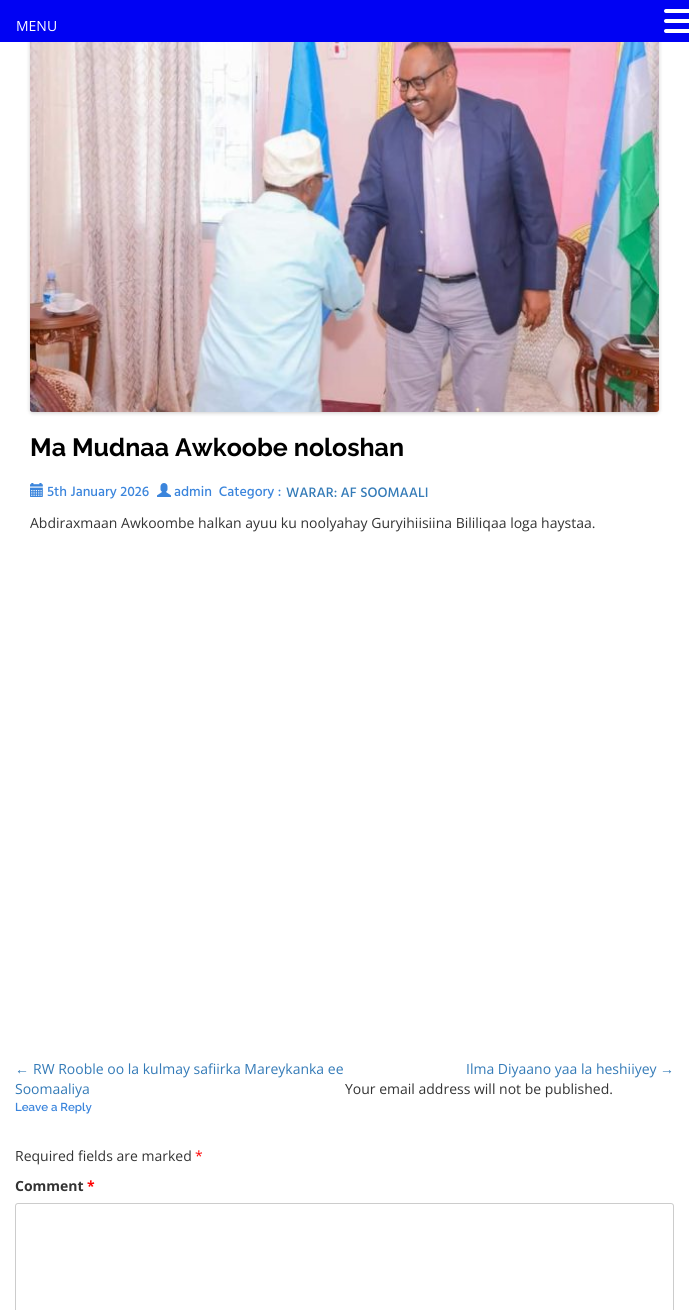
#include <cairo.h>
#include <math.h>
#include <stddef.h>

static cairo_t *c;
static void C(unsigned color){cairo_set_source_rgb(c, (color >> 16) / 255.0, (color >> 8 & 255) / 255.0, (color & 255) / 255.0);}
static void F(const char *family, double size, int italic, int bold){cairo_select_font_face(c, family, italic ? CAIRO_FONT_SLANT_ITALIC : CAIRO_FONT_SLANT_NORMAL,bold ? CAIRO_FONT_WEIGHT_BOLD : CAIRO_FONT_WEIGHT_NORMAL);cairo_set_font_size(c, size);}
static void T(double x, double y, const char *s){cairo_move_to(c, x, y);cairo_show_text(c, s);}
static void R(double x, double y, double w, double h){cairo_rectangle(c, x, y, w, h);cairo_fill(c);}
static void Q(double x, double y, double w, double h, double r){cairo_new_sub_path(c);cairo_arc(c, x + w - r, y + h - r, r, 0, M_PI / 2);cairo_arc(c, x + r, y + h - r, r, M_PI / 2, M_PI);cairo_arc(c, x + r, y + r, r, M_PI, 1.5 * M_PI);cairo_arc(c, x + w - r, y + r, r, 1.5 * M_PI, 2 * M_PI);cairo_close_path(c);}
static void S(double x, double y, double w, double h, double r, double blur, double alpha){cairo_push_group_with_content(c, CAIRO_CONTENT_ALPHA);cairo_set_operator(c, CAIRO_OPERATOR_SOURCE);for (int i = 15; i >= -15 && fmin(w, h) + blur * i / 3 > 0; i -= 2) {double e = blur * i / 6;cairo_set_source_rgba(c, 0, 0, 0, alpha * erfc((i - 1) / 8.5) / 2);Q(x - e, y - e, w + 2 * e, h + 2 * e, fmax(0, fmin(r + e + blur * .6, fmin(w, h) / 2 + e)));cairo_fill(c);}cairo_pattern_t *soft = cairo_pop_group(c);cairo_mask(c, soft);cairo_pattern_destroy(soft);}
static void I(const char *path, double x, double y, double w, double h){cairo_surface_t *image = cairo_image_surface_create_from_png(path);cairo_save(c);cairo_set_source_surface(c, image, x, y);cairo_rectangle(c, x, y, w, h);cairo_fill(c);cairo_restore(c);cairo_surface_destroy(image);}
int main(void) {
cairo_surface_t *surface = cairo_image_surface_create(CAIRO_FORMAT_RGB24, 689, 1310);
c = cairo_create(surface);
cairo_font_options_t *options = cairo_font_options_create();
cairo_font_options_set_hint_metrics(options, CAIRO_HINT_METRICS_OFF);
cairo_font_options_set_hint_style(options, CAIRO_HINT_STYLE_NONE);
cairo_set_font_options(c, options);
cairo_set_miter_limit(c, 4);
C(0xffffff);
cairo_paint(c);
C(0x000000);
S(30,4,629,409,3,2,.2);
C(0x0002f3);
R(0,0,689,42);
F("Open Sans",14,0,0);
C(0xffffff);
T(16,31,"MENU");
Q(664,9,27,4,2);
cairo_fill(c);
Q(664,19,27,4,2);
cairo_fill(c);
Q(664,29,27,4,2);
cairo_fill(c);
I("1.png",30,42,629,370);
F("Raleway",25,0,1);
C(0x000000);
T(30,456,"Ma Mudnaa Awkoobe noloshan");
I("2.png",30,483,13,14);
F("Hind Vadodara Medium",14,0,0);
C(0x3b85dc);
T(47,496,"5th January 2026");
I("3.png",157,483,14,14);
T(174,496,"admin  Category :");
C(0x337ab7);
T(286,497,"WARAR: AF SOOMAALI");
F("Open Sans",14,0,0);
C(0x333333);
T(30,528,"Abdiraxmaan Awkoombe halkan ayuu ku noolyahay Guryihiisiina Bililiqaa loga haystaa.");
F("Liberation Sans",14,0,0);
C(0x337ab7);
T(15,1074,"←");
F("Open Sans",14,0,0);
T(33,1074,"RW Rooble oo la kulmay safiirka Mareykanka ee");
T(15,1094,"Soomaaliya");
T(466,1074,"Ilma Diyaano yaa la heshiiyey");
F("Liberation Sans",14,0,0);
T(660,1074,"→");
F("Open Sans",14,0,0);
C(0x333333);
T(345,1094,"Your email address will not be published.");
T(15,1161,"Required fields are marked");
C(0xff0000);
T(195,1161,"*");
F("Open Sans",14,0,1);
C(0x333333);
T(15,1191,"Comment");
C(0xff0000);
T(87,1191,"*");
Q(15.5,1203.5,658,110,2.5);
C(0xcccccc);
cairo_set_line_width(c,1);
cairo_stroke(c);
F("Raleway SemiBold",11.5,0,0);
C(0x3b85dc);
T(15,1111,"Leave a Reply");
cairo_surface_write_to_png(surface, "o.png");
cairo_font_options_destroy(options);
cairo_destroy(c);
cairo_surface_destroy(surface);
return 0;
}
